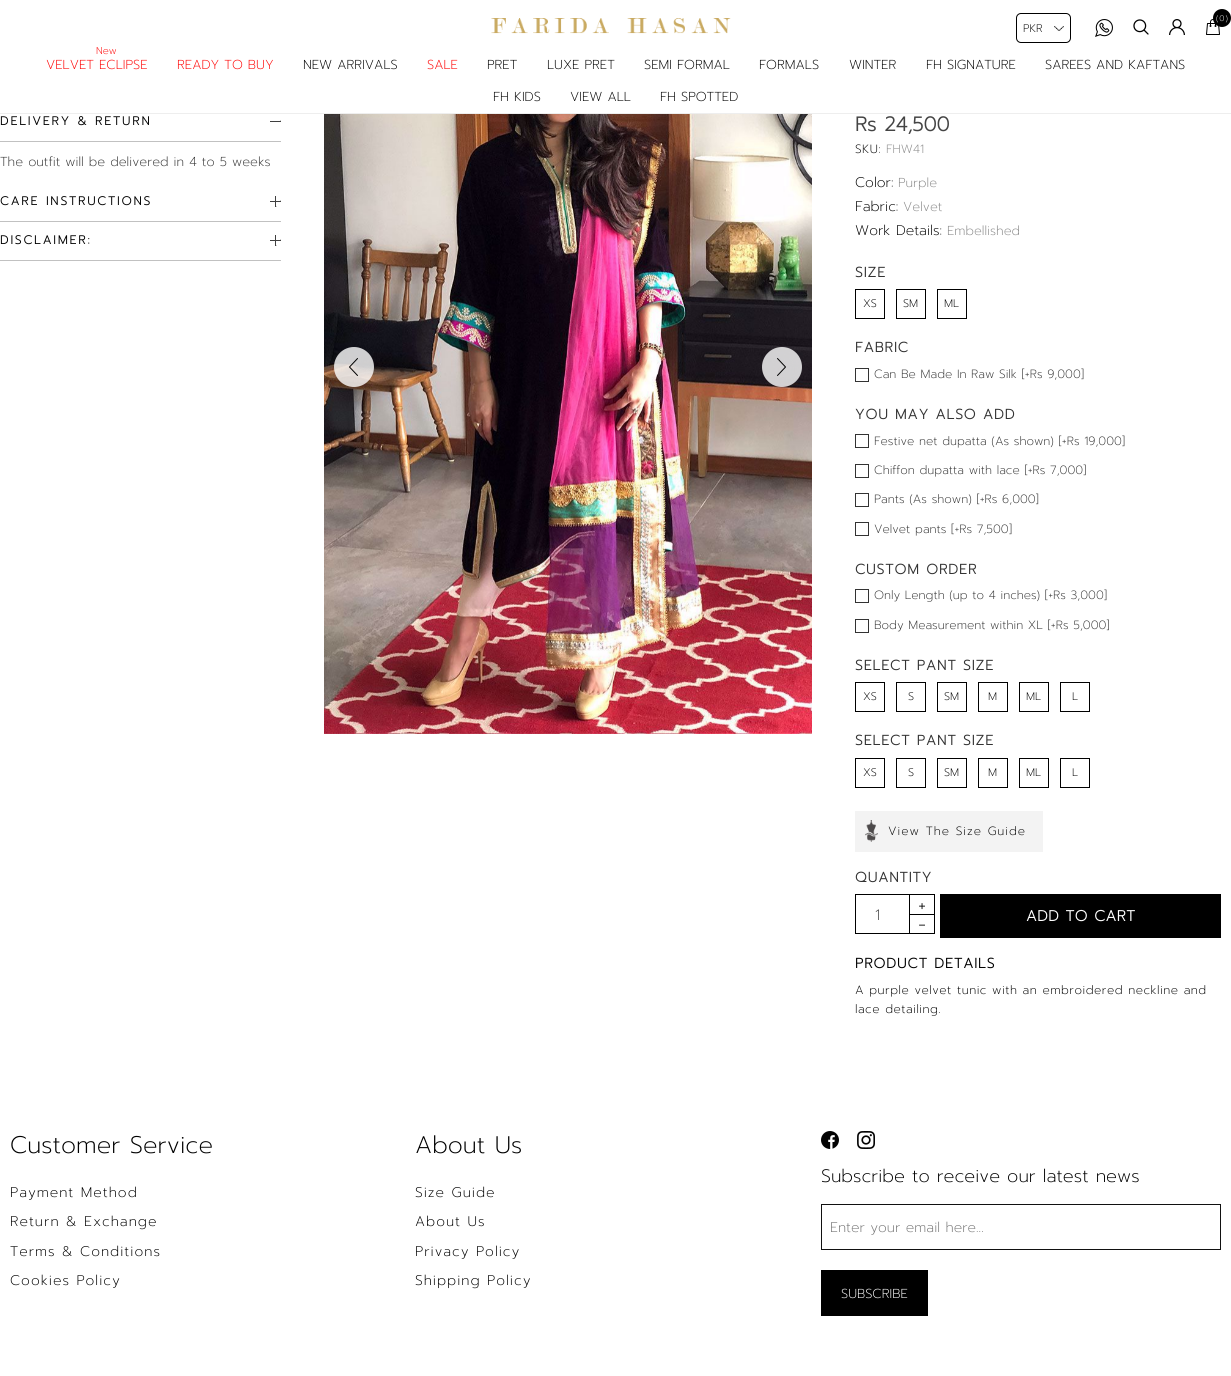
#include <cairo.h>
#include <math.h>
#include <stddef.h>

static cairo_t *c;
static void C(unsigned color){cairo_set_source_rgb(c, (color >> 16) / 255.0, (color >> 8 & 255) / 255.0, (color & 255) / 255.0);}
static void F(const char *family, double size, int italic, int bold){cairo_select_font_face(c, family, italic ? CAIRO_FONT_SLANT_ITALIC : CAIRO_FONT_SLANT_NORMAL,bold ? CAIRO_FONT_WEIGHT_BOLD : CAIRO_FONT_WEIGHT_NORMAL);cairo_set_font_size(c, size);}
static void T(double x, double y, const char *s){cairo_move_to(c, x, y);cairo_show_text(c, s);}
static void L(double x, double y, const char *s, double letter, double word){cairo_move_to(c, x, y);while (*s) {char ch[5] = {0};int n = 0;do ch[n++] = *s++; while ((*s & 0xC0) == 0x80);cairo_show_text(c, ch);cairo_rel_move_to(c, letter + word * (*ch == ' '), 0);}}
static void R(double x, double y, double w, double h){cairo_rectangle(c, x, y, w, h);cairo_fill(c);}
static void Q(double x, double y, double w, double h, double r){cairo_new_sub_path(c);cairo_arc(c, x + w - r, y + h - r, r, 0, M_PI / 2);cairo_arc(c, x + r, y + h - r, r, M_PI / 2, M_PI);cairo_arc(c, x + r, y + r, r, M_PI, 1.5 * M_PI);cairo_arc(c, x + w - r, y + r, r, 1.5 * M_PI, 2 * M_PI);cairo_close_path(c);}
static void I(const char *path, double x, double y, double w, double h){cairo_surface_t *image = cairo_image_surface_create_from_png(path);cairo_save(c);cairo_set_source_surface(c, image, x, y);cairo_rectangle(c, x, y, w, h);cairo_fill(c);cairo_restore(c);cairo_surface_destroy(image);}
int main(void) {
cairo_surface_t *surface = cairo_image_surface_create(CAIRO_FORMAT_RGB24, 1231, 1376);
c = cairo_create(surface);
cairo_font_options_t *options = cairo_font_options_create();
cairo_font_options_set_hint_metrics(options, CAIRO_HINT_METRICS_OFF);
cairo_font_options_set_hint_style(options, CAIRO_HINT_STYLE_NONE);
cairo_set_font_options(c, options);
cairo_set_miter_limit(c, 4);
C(0xffffff);
cairo_paint(c);
C(0xeeeeee);
R(0,113,1231,1);
I("1.png",491,18,240,16);
I("2.png",1054,26,10,5);
Q(1016.5,13.5,54,29,4.5);
C(0x000000);
cairo_set_line_width(c,1);
cairo_stroke(c);
F("Prompt ExtraLight",11,0,0);
T(1023,32,"PKR");
I("3.png",1095,19,18,18);
I("4.png",1133,19,16,16);
I("5.png",1169,19,16,16);
I("6.png",1206,19,14,16);
cairo_arc(c,1222,18,9,0,2 * M_PI);
cairo_fill(c);
F("Prompt ExtraLight",8,0,0);
C(0xffffff);
L(1216,21,"(0)",1,0);
F("Prompt ExtraLight",10,0,0);
C(0xff0000);
T(96,54,"New");
F("Prompt ExtraLight",13,0,0);
T(46,69,"VELVET ECLIPSE");
T(177,69,"READY TO BUY");
C(0x000000);
T(303,69,"NEW ARRIVALS");
C(0xff0000);
T(427,69,"SALE");
C(0x000000);
T(487,69,"PRET");
T(547,69,"LUXE PRET");
T(644,69,"SEMI FORMAL");
T(759,69,"FORMALS");
T(849,69,"WINTER");
T(926,69,"FH SIGNATURE");
T(1045,69,"SAREES AND KAFTANS");
T(493,101,"FH KIDS");
T(570,101,"VIEW ALL");
T(660,101,"FH SPOTTED");
I("7.png",324,114,488,620);
cairo_set_source_rgba(c,1,1,1,0.8);
cairo_arc(c,354,367,20,0,2 * M_PI);
cairo_fill(c);
I("8.png",349,358,9,18);
cairo_arc(c,782,367,20,0,2 * M_PI);
cairo_fill(c);
I("9.png",777,358,9,18);
I("10.png",270,120,11,2);
C(0xc1c1c1);
R(0,141,281,1);
F("Prompt",12,0,1);
C(0x000000);
L(0,125,"DELIVERY & RETURN",2,0);
F("Prompt ExtraLight",13,0,0);
C(0x333333);
T(0,166,"The outfit will be delivered in 4 to 5 weeks");
I("11.png",270,196,11,11);
C(0xc1c1c1);
R(0,221,281,1);
F("Prompt",12,0,1);
C(0x000000);
L(0,205,"CARE INSTRUCTIONS",2,0);
I("11.png",270,235,11,11);
C(0xc1c1c1);
R(0,260,281,1);
C(0x000000);
L(0,244,"DISCLAIMER:",2,0);
F("Prompt",20,0,1);
C(0x444444);
T(855,131,"Rs 24,500");
F("Prompt ExtraLight",12,0,0);
C(0x000000);
L(855,153,"SKU:",.5,0);
C(0x888888);
T(886,153,"FHW41");
F("Prompt ExtraLight",14,0,0);
C(0x000000);
T(855,187,"Color:");
F("Prompt ExtraLight",13,0,0);
C(0x888888);
T(898,187,"Purple");
F("Prompt ExtraLight",14,0,0);
C(0x000000);
T(855,211,"Fabric:");
F("Prompt ExtraLight",13,0,0);
C(0x888888);
T(903,211,"Velvet");
F("Prompt ExtraLight",14,0,0);
C(0x000000);
T(855,235,"Work Details:");
F("Prompt ExtraLight",13,0,0);
C(0x888888);
T(947,235,"Embellished");
F("Prompt",14,0,1);
C(0x333333);
L(855,277,"SIZE",1,0);
cairo_rectangle(c,855.5,289.5,29,29);
C(0x000000);
cairo_stroke(c);
F("Prompt ExtraLight",11,0,0);
T(863,307,"XS");
cairo_rectangle(c,896.5,289.5,29,29);
cairo_stroke(c);
T(903,307,"SM");
cairo_rectangle(c,937.5,289.5,29,29);
cairo_stroke(c);
T(944,307,"ML");
F("Prompt",14,0,1);
C(0x333333);
L(855,352,"FABRIC",1,0);
cairo_rectangle(c,855.5,368.5,13,13);
cairo_stroke(c);
F("Prompt ExtraLight",12,0,0);
T(874,378,"Can Be Made In Raw Silk [+Rs 9,000]");
F("Prompt",14,0,1);
L(855,419,"YOU MAY ALSO ADD",1,0);
cairo_rectangle(c,855.5,434.5,13,13);
cairo_stroke(c);
F("Prompt ExtraLight",12,0,0);
T(874,445,"Festive net dupatta (As shown) [+Rs 19,000]");
cairo_rectangle(c,855.5,464.5,13,13);
cairo_stroke(c);
T(874,474,"Chiffon dupatta with lace [+Rs 7,000]");
cairo_rectangle(c,855.5,493.5,13,13);
cairo_stroke(c);
T(874,503,"Pants (As shown) [+Rs 6,000]");
cairo_rectangle(c,855.5,522.5,13,13);
cairo_stroke(c);
T(874,533,"Velvet pants [+Rs 7,500]");
F("Prompt",14,0,1);
L(855,574,"CUSTOM ORDER",1,0);
cairo_rectangle(c,855.5,589.5,13,13);
cairo_stroke(c);
F("Prompt ExtraLight",12,0,0);
T(874,599,"Only Length (up to 4 inches) [+Rs 3,000]");
cairo_rectangle(c,855.5,619.5,13,13);
cairo_stroke(c);
T(874,629,"Body Measurement within XL [+Rs 5,000]");
F("Prompt",14,0,1);
L(855,670,"SELECT PANT SIZE",1,0);
cairo_rectangle(c,855.5,682.5,29,29);
C(0x000000);
cairo_stroke(c);
F("Prompt ExtraLight",11,0,0);
T(863,700,"XS");
cairo_rectangle(c,896.5,682.5,29,29);
cairo_stroke(c);
T(908,700,"S");
cairo_rectangle(c,937.5,682.5,29,29);
cairo_stroke(c);
T(944,700,"SM");
cairo_rectangle(c,978.5,682.5,29,29);
cairo_stroke(c);
T(988,700,"M");
cairo_rectangle(c,1019.5,682.5,29,29);
cairo_stroke(c);
T(1026,700,"ML");
cairo_rectangle(c,1060.5,682.5,29,29);
cairo_stroke(c);
T(1072,700,"L");
F("Prompt",14,0,1);
C(0x333333);
L(855,745,"SELECT PANT SIZE",1,0);
cairo_rectangle(c,855.5,758.5,29,29);
C(0x000000);
cairo_stroke(c);
F("Prompt ExtraLight",11,0,0);
T(863,776,"XS");
cairo_rectangle(c,896.5,758.5,29,29);
cairo_stroke(c);
T(908,776,"S");
cairo_rectangle(c,937.5,758.5,29,29);
cairo_stroke(c);
T(944,776,"SM");
cairo_rectangle(c,978.5,758.5,29,29);
cairo_stroke(c);
T(988,776,"M");
cairo_rectangle(c,1019.5,758.5,29,29);
cairo_stroke(c);
T(1026,776,"ML");
cairo_rectangle(c,1060.5,758.5,29,29);
cairo_stroke(c);
T(1072,776,"L");
C(0xf3f3f3);
R(855,811,188,41);
I("12.png",865,820,13,22);
F("Prompt ExtraLight",12,0,0);
C(0x000000);
L(888,835,"View The Size Guide",1,0);
F("Prompt",14,0,1);
C(0x333333);
L(855,882,"QUANTITY",1,0);
cairo_rectangle(c,855.5,894.5,79,39);
C(0x000000);
cairo_stroke(c);
F("Prompt ExtraLight",20,0,0);
T(918,912,"+");
F("Prompt ExtraLight",15,0,0);
C(0x444444);
T(875,920,"1");
C(0x000000);
R(909,914,25,1);
R(909,895,1,38);
F("Prompt ExtraLight",20,0,0);
T(918,931,"-");
R(940,894,281,44);
F("Prompt",15,0,1);
C(0xffffff);
L(1026,921,"ADD TO CART",.5,0);
F("Prompt",14,0,1);
C(0x000000);
L(855,968,"PRODUCT DETAILS",1,0);
F("Prompt ExtraLight",12,0,0);
L(855,994,"A purple velvet tunic with an embroidered neckline and",.5,0);
L(855,1013,"lace detailing.",.5,0);
F("Prompt ExtraLight",24,0,0);
T(10,1153,"Customer Service");
F("Prompt ExtraLight",14,0,0);
L(10,1197,"Payment Method",1,0);
L(10,1226,"Return & Exchange",1,0);
L(10,1256,"Terms & Conditions",1,0);
L(10,1285,"Cookies Policy",1,0);
F("Prompt ExtraLight",24,0,0);
T(415,1153,"About Us");
F("Prompt ExtraLight",14,0,0);
L(415,1197,"Size Guide",1,0);
L(415,1226,"About Us",1,0);
L(415,1256,"Privacy Policy",1,0);
L(415,1285,"Shipping Policy",1,0);
I("13.png",821,1131,18,18);
I("14.png",857,1131,18,18);
F("Prompt ExtraLight",18,0,0);
T(821,1182,"Subscribe to receive our latest news");
cairo_rectangle(c,821.5,1204.5,399,45);
C(0x111111);
cairo_stroke(c);
F("Prompt ExtraLight",14,0,0);
C(0x757575);
T(830,1232,"Enter your email here...");
C(0x000000);
R(821,1270,107,46);
F("Prompt ExtraLight",13,0,0);
C(0xffffff);
T(841,1298,"SUBSCRIBE");
cairo_surface_write_to_png(surface, "o.png");
cairo_font_options_destroy(options);
cairo_destroy(c);
cairo_surface_destroy(surface);
return 0;
}
